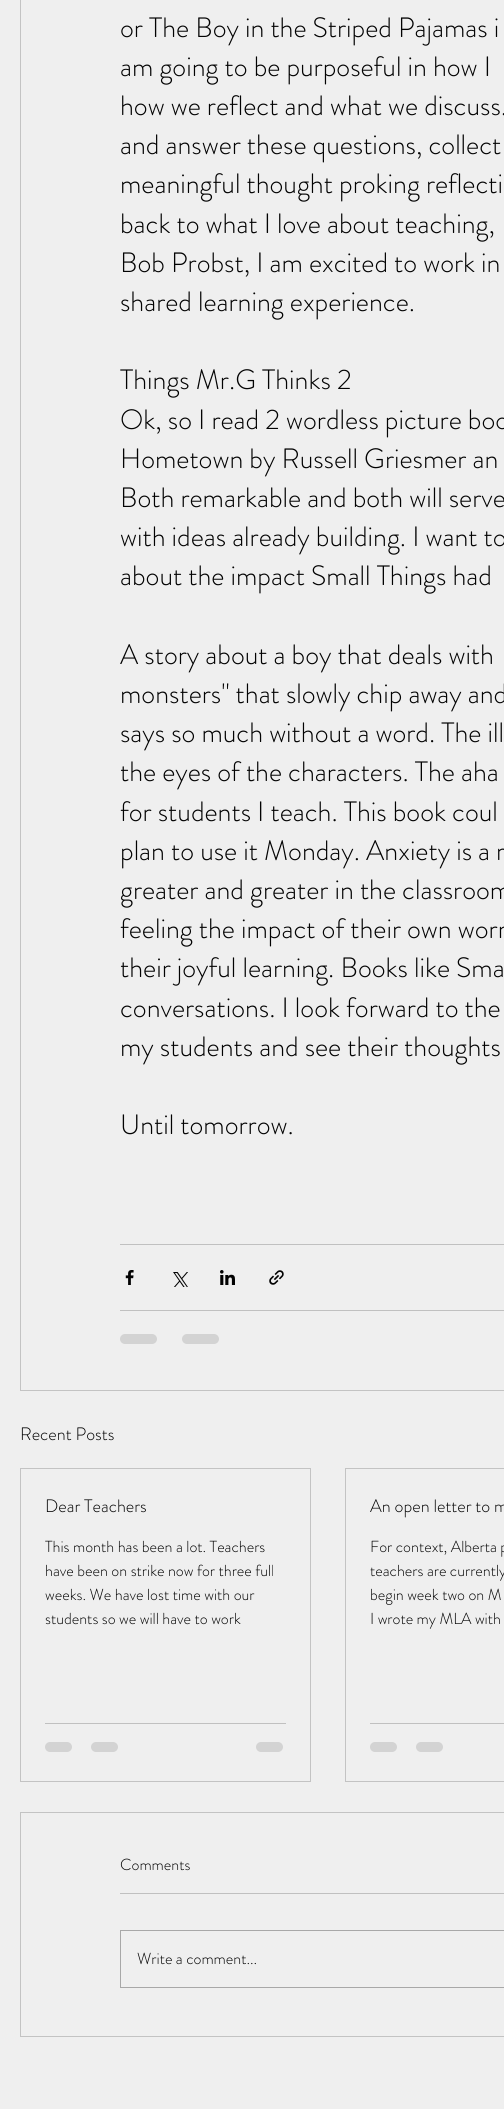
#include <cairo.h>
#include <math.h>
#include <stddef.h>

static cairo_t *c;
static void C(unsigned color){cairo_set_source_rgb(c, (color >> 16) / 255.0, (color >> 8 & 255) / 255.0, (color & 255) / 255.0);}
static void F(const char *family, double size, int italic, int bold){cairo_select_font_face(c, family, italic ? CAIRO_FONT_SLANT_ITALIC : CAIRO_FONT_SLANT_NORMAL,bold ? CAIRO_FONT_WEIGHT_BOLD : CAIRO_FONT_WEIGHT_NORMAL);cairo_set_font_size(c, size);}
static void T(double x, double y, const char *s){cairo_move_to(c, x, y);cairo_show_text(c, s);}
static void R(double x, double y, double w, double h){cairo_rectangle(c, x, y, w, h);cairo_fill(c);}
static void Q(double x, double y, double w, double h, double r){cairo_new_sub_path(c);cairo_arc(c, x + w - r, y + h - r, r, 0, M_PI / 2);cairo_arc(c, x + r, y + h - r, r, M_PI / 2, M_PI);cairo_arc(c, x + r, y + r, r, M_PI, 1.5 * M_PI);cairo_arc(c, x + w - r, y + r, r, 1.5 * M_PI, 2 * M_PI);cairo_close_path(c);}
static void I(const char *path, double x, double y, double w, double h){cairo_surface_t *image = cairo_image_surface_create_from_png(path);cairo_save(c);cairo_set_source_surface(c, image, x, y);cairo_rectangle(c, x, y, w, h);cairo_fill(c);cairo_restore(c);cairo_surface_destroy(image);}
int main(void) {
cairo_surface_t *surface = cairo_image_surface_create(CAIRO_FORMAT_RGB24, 504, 2109);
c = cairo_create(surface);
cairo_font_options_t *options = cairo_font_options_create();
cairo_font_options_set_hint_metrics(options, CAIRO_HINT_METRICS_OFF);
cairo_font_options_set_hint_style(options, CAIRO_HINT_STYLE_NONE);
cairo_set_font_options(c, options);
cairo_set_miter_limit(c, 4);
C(0xefefef);
cairo_paint(c);
cairo_rectangle(c,20.5,-.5,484,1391);
C(0xc3c3c3);
cairo_set_line_width(c,1);
cairo_stroke(c);
F("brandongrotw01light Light",28,0,0);
C(0x020202);
T(120,37,"or The Boy in the Striped Pajamas i");
T(120,76,"am going to be purposeful in how I");
T(120,115,"how we reflect and what we discuss.");
T(120,154,"and answer these questions, collect");
T(120,193,"meaningful thought proking reflecti");
T(120,233,"back to what I love about teaching,");
T(120,272,"Bob Probst, I am excited to work in");
T(120,311,"shared learning experience.");
T(120,389,"Things Mr.G Thinks 2");
T(120,429,"Ok, so I read 2 wordless picture boo");
T(120,468,"Hometown by Russell Griesmer an");
T(120,507,"Both remarkable and both will serve");
T(120,546,"with ideas already building. I want to");
T(120,585,"about the impact Small Things had");
T(120,664,"A story about a boy that deals with");
T(120,703,"monsters\" that slowly chip away and");
T(120,742,"says so much without a word. The ill");
T(120,781,"the eyes of the characters. The aha");
T(120,821,"for students I teach. This book coul");
T(120,860,"plan to use it Monday. Anxiety is a r");
T(120,899,"greater and greater in the classroom");
T(120,938,"feeling the impact of their own worr");
T(120,977,"their joyful learning. Books like Sma");
T(120,1017,"conversations. I look forward to the");
T(120,1056,"my students and see their thoughts");
T(120,1134,"Until tomorrow.");
C(0xc0c0c0);
R(120,1244,384,1);
I("1.png",125,1270,9,15);
I("2.png",173,1272,15,15);
I("3.png",220,1270,15,15);
I("4.png",269,1270,15,15);
R(120,1310,384,1);
C(0xd3d3d3);
Q(120,1334,37,10,5);
cairo_fill(c);
Q(182,1334,37,10,5);
cairo_fill(c);
F("brandongrotw01light Light",18,0,0);
C(0x020202);
T(20,1440,"Recent Posts");
cairo_rectangle(c,20.5,1468.5,290,313);
C(0xc3c3c3);
cairo_stroke(c);
C(0x020202);
T(45,1512,"Dear Teachers");
F("brandongrotw01light Light",16,0,0);
T(45,1552,"This month has been a lot. Teachers");
T(45,1576,"have been on strike now for three full");
T(45,1600,"weeks. We have lost time with our");
T(45,1624,"students so we will have to work");
C(0xc0c0c0);
R(45,1723,241,1);
C(0xd3d3d3);
Q(45,1742,27,10,5);
cairo_fill(c);
Q(91,1742,27,10,5);
cairo_fill(c);
Q(256,1742,27,10,5);
cairo_fill(c);
cairo_rectangle(c,345.5,1468.5,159,313);
C(0xc3c3c3);
cairo_stroke(c);
F("brandongrotw01light Light",18,0,0);
C(0x020202);
T(370,1512,"An open letter to m");
F("brandongrotw01light Light",16,0,0);
T(370,1552,"For context, Alberta p");
T(370,1576,"teachers are currently");
T(370,1600,"begin week two on M");
T(370,1624,"I wrote my MLA with");
C(0xc0c0c0);
R(370,1723,134,1);
C(0xd3d3d3);
Q(370,1742,27,10,5);
cairo_fill(c);
Q(416,1742,27,10,5);
cairo_fill(c);
cairo_rectangle(c,20.5,1812.5,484,224);
C(0xc3c3c3);
cairo_stroke(c);
C(0x020202);
T(120,1870,"Comments");
C(0xc0c0c0);
R(120,1893,384,1);
cairo_rectangle(c,120.5,1930.5,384,57);
C(0xa8a8a8);
cairo_stroke(c);
C(0x020202);
T(137,1964,"Write a comment...");
cairo_surface_write_to_png(surface, "o.png");
cairo_font_options_destroy(options);
cairo_destroy(c);
cairo_surface_destroy(surface);
return 0;
}
